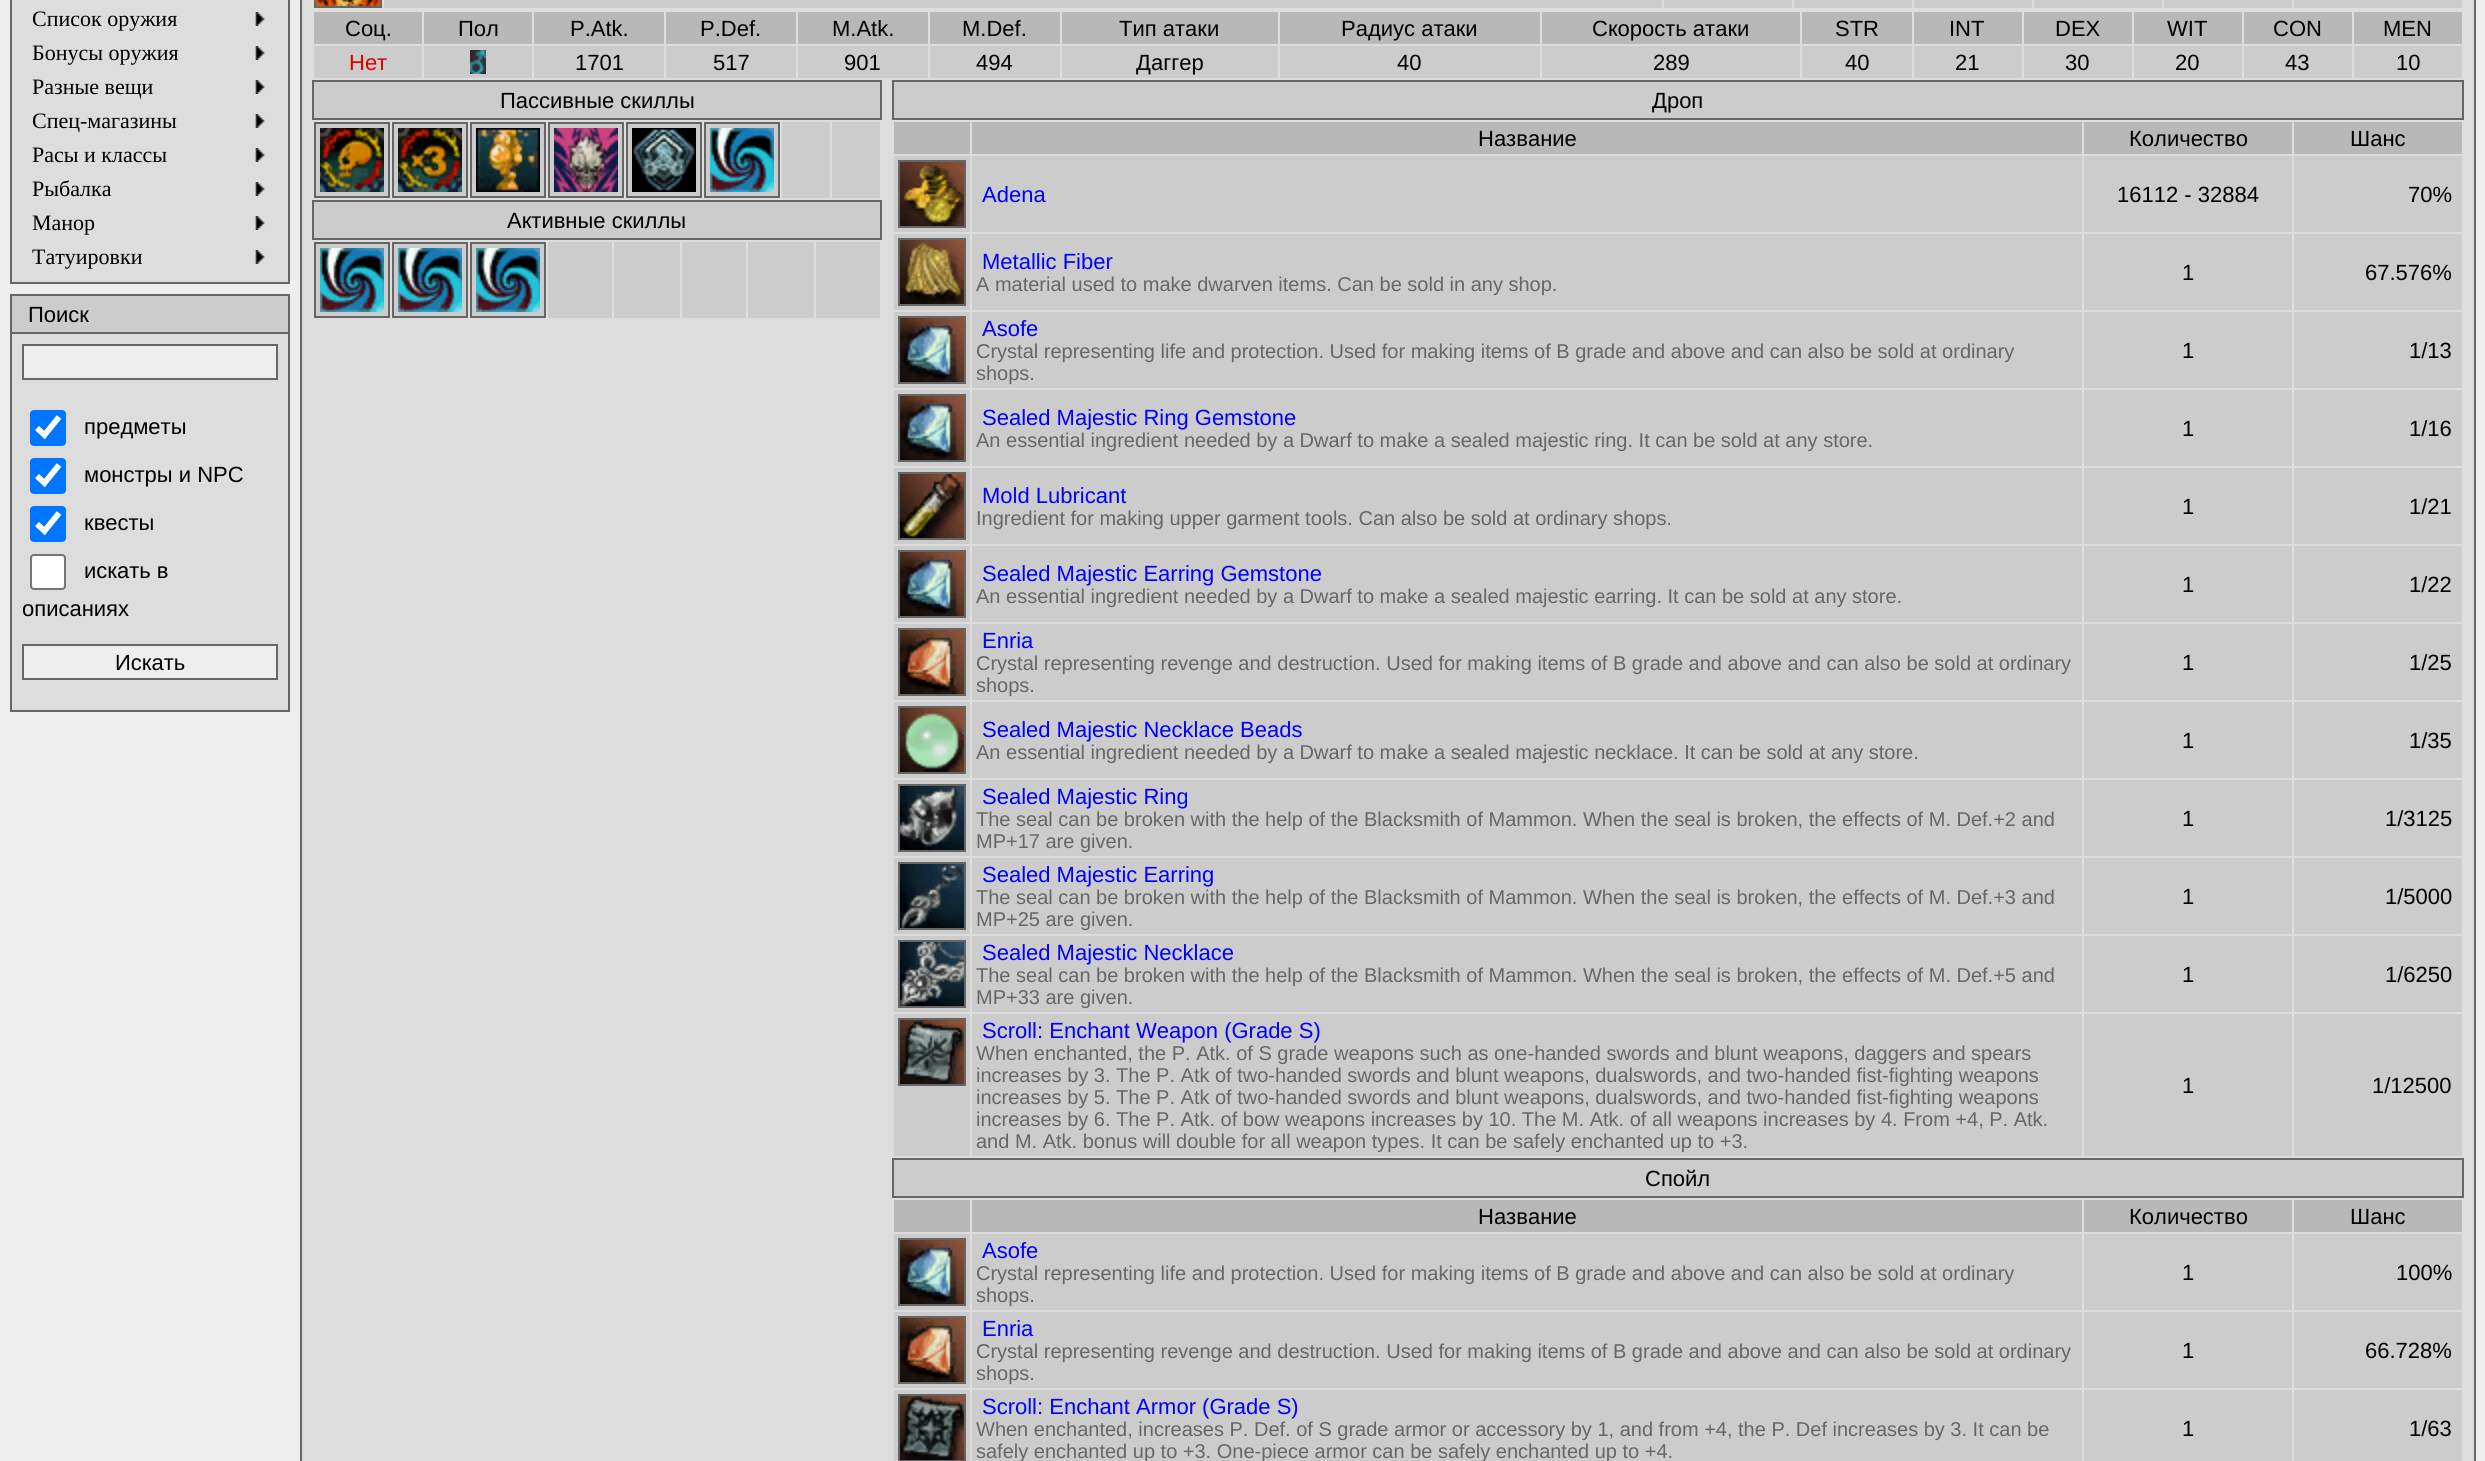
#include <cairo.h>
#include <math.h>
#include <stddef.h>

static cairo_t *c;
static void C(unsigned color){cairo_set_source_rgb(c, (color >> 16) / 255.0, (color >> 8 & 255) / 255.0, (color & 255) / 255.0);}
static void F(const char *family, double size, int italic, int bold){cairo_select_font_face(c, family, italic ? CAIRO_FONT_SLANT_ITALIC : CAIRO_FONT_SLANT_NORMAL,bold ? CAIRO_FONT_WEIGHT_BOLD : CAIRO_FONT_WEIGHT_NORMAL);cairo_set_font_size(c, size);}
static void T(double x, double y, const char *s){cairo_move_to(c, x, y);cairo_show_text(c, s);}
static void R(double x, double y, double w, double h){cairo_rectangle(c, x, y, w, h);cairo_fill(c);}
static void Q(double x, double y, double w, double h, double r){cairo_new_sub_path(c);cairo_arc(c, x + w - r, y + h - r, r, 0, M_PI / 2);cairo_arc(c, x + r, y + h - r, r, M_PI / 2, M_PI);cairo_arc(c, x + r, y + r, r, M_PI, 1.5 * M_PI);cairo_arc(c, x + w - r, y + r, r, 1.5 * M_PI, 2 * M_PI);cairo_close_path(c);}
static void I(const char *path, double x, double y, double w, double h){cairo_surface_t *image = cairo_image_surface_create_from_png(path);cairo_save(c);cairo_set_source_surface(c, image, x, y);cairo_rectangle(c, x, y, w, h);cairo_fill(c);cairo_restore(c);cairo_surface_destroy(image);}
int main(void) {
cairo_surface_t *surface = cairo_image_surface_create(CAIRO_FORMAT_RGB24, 2485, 1461);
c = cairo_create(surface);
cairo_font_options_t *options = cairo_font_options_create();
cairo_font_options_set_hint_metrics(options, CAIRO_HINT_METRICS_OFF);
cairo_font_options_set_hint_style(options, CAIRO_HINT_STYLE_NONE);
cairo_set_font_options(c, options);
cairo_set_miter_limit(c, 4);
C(0xeeeeee);
cairo_paint(c);
C(0xdddddd);
R(12,0,276,274);
C(0x666666);
R(10,0,2,274);
R(288,0,2,284);
F("Liberation Serif",22,0,0);
C(0x000000);
T(32,26,"Список оружия");
I("1.png",255,12,10,14);
T(32,60,"Бонусы оружия");
I("1.png",255,46,10,14);
T(32,94,"Разные вещи");
I("1.png",255,80,10,14);
T(32,128,"Спец-магазины");
I("1.png",255,114,10,14);
T(32,162,"Расы и классы");
I("1.png",255,148,10,14);
T(32,196,"Рыбалка");
I("1.png",255,182,10,14);
T(32,230,"Манор");
I("1.png",255,216,10,14);
T(32,264,"Татуировки");
I("1.png",255,250,10,14);
C(0xdddddd);
R(12,274,276,8);
C(0x666666);
R(10,282,280,2);
R(10,274,2,10);
C(0xcccccc);
R(12,296,276,36);
C(0x666666);
R(10,294,280,2);
R(10,332,268,2);
R(10,294,2,408);
F("Liberation Sans",22,0,0);
C(0x000000);
T(28,322,"Поиск");
C(0x666666);
R(288,294,2,418);
R(278,332,12,2);
C(0xdddddd);
R(12,334,276,368);
C(0xeeeeee);
cairo_rectangle(c,23,345,254,34);
cairo_fill_preserve(c);
C(0x666666);
cairo_stroke(c);
C(0x0075ff);
Q(30,410,36,36,4);
cairo_fill(c);
cairo_new_path(c);
cairo_move_to(c,37,428);
cairo_line_to(c,44.5,435);
cairo_line_to(c,59,417);
C(0xffffff);
cairo_set_line_width(c,5.8);
cairo_stroke(c);
C(0x000000);
T(84,434,"предметы");
C(0x0075ff);
Q(30,458,36,36,4);
cairo_fill(c);
cairo_new_path(c);
cairo_move_to(c,37,476);
cairo_line_to(c,44.5,483);
cairo_line_to(c,59,465);
C(0xffffff);
cairo_stroke(c);
C(0x000000);
T(84,482,"монстры и NPC");
C(0x0075ff);
Q(30,506,36,36,4);
cairo_fill(c);
cairo_new_path(c);
cairo_move_to(c,37,524);
cairo_line_to(c,44.5,531);
cairo_line_to(c,59,513);
C(0xffffff);
cairo_stroke(c);
C(0x000000);
T(84,530,"квесты");
C(0xffffff);
Q(31,555,34,34,3);
cairo_fill_preserve(c);
C(0x767676);
cairo_set_line_width(c,2);
cairo_stroke(c);
C(0x000000);
T(84,578,"искать в");
T(22,616,"описаниях");
C(0xeeeeee);
cairo_rectangle(c,23,645,254,34);
cairo_fill_preserve(c);
C(0x666666);
cairo_stroke(c);
C(0x000000);
T(115,670,"Искать");
C(0xdddddd);
R(12,702,276,8);
C(0x666666);
R(10,710,280,2);
R(10,702,2,10);
C(0xdddddd);
R(302,0,2172,1461);
C(0x666666);
R(300,0,2,1461);
R(2474,0,2,1461);
cairo_rectangle(c,315,-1,66,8);
cairo_stroke(c);
I("2.png",316,0,64,6);
C(0xcccccc);
R(384,0,1278,8);
R(1664,0,128,8);
R(1794,0,118,8);
R(1914,0,118,8);
R(2034,0,128,8);
R(2164,0,128,8);
R(2294,0,168,8);
C(0xb8b8b8);
R(314,12,108,32);
C(0x000000);
T(345,36,"Соц.");
C(0xb8b8b8);
R(424,12,108,32);
C(0x000000);
T(458,36,"Пол");
C(0xb8b8b8);
R(534,12,130,32);
C(0x000000);
T(570,36,"P.Atk.");
C(0xb8b8b8);
R(666,12,130,32);
C(0x000000);
T(700,36,"P.Def.");
C(0xb8b8b8);
R(798,12,130,32);
C(0x000000);
T(832,36,"M.Atk.");
C(0xb8b8b8);
R(930,12,130,32);
C(0x000000);
T(962,36,"M.Def.");
C(0xb8b8b8);
R(1062,12,216,32);
C(0x000000);
T(1119,36,"Тип атаки");
C(0xb8b8b8);
R(1280,12,260,32);
C(0x000000);
T(1341,36,"Радиус атаки");
C(0xb8b8b8);
R(1542,12,258,32);
C(0x000000);
T(1592,36,"Скорость атаки");
C(0xb8b8b8);
R(1802,12,110,32);
C(0x000000);
T(1835,36,"STR");
C(0xb8b8b8);
R(1914,12,108,32);
C(0x000000);
T(1949,36,"INT");
C(0xb8b8b8);
R(2024,12,108,32);
C(0x000000);
T(2055,36,"DEX");
C(0xb8b8b8);
R(2134,12,108,32);
C(0x000000);
T(2167,36,"WIT");
C(0xb8b8b8);
R(2244,12,108,32);
C(0x000000);
T(2273,36,"CON");
C(0xb8b8b8);
R(2354,12,108,32);
C(0x000000);
T(2383,36,"MEN");
C(0xcccccc);
R(314,46,108,32);
C(0xdd0000);
T(349,70,"Нет");
C(0xcccccc);
R(424,46,108,32);
I("3.png",470,50,16,24);
R(534,46,130,32);
C(0x000000);
T(575,70,"1701");
C(0xcccccc);
R(666,46,130,32);
C(0x000000);
T(713,70,"517");
C(0xcccccc);
R(798,46,130,32);
C(0x000000);
T(844,70,"901");
C(0xcccccc);
R(930,46,130,32);
C(0x000000);
T(976,70,"494");
C(0xcccccc);
R(1062,46,216,32);
C(0x000000);
T(1136,70,"Даггер");
C(0xcccccc);
R(1280,46,260,32);
C(0x000000);
T(1397,70,"40");
C(0xcccccc);
R(1542,46,258,32);
C(0x000000);
T(1653,70,"289");
C(0xcccccc);
R(1802,46,110,32);
C(0x000000);
T(1845,70,"40");
C(0xcccccc);
R(1914,46,108,32);
C(0x000000);
T(1955,70,"21");
C(0xcccccc);
R(2024,46,108,32);
C(0x000000);
T(2065,70,"30");
C(0xcccccc);
R(2134,46,108,32);
C(0x000000);
T(2175,70,"20");
C(0xcccccc);
R(2244,46,108,32);
C(0x000000);
T(2285,70,"43");
C(0xcccccc);
R(2354,46,108,32);
C(0x000000);
T(2396,70,"10");
C(0xcccccc);
R(314,82,566,36);
C(0x666666);
R(312,80,570,2);
R(312,118,558,2);
R(312,80,2,40);
C(0x000000);
T(500,108,"Пассивные скиллы");
C(0x666666);
R(880,80,2,40);
R(870,118,12,2);
C(0xcccccc);
cairo_rectangle(c,315,123,74,74);
cairo_fill_preserve(c);
C(0x666666);
cairo_stroke(c);
I("4.png",320,128,64,64);
C(0xcccccc);
cairo_rectangle(c,393,123,74,74);
cairo_fill_preserve(c);
C(0x666666);
cairo_stroke(c);
I("5.png",398,128,64,64);
C(0xcccccc);
cairo_rectangle(c,471,123,74,74);
cairo_fill_preserve(c);
C(0x666666);
cairo_stroke(c);
I("6.png",476,128,64,64);
C(0xcccccc);
cairo_rectangle(c,549,123,74,74);
cairo_fill_preserve(c);
C(0x666666);
cairo_stroke(c);
I("7.png",554,128,64,64);
C(0xcccccc);
cairo_rectangle(c,627,123,74,74);
cairo_fill_preserve(c);
C(0x666666);
cairo_stroke(c);
I("8.png",632,128,64,64);
C(0xcccccc);
cairo_rectangle(c,705,123,74,74);
cairo_fill_preserve(c);
C(0x666666);
cairo_stroke(c);
I("9.png",710,128,64,64);
C(0xcccccc);
R(782,122,48,76);
R(832,122,48,76);
R(314,202,566,36);
C(0x666666);
R(312,200,570,2);
R(312,238,558,2);
R(312,200,2,40);
C(0x000000);
T(507,228,"Активные скиллы");
C(0x666666);
R(880,200,2,40);
R(870,238,12,2);
C(0xcccccc);
cairo_rectangle(c,315,243,74,74);
cairo_fill_preserve(c);
C(0x666666);
cairo_stroke(c);
I("9.png",320,248,64,64);
C(0xcccccc);
cairo_rectangle(c,393,243,74,74);
cairo_fill_preserve(c);
C(0x666666);
cairo_stroke(c);
I("9.png",398,248,64,64);
C(0xcccccc);
cairo_rectangle(c,471,243,74,74);
cairo_fill_preserve(c);
C(0x666666);
cairo_stroke(c);
I("9.png",476,248,64,64);
C(0xcccccc);
R(548,242,64,76);
R(614,242,66,76);
R(682,242,64,76);
R(748,242,66,76);
R(816,242,64,76);
R(894,82,1568,36);
C(0x666666);
R(892,80,1572,2);
R(892,118,1560,2);
R(892,80,2,40);
C(0x000000);
T(1652,108,"Дроп");
C(0x666666);
R(2462,80,2,40);
R(2452,118,12,2);
C(0xb8b8b8);
R(894,122,76,32);
R(972,122,1110,32);
C(0x000000);
T(1478,146,"Название");
C(0xb8b8b8);
R(2084,122,208,32);
C(0x000000);
T(2129,146,"Количество");
C(0xb8b8b8);
R(2294,122,168,32);
C(0x000000);
T(2350,146,"Шанс");
C(0xcccccc);
R(894,156,76,76);
cairo_rectangle(c,899,161,66,66);
C(0x666666);
cairo_stroke(c);
I("10.png",900,162,64,64);
C(0xcccccc);
R(972,156,1110,76);
C(0x0000ff);
T(982,202,"Adena");
C(0xcccccc);
R(2084,156,208,76);
C(0x000000);
T(2117,202,"16112 - 32884");
C(0xcccccc);
R(2294,156,168,76);
C(0x000000);
T(2408,202,"70%");
C(0xcccccc);
R(894,234,76,76);
cairo_rectangle(c,899,239,66,66);
C(0x666666);
cairo_stroke(c);
I("11.png",900,240,64,64);
C(0xcccccc);
R(972,234,1110,76);
C(0x0000ff);
T(982,269,"Metallic Fiber");
F("Liberation Sans",20,0,0);
C(0x666666);
T(976,291,"A material used to make dwarven items. Can be sold in any shop.");
C(0xcccccc);
R(2084,234,208,76);
F("Liberation Sans",22,0,0);
C(0x000000);
T(2182,280,"1");
C(0xcccccc);
R(2294,234,168,76);
C(0x000000);
T(2365,280,"67.576%");
C(0xcccccc);
R(894,312,76,76);
cairo_rectangle(c,899,317,66,66);
C(0x666666);
cairo_stroke(c);
I("12.png",900,318,64,64);
C(0xcccccc);
R(972,312,1110,76);
C(0x0000ff);
T(982,336,"Asofe");
F("Liberation Sans",20,0,0);
C(0x666666);
T(976,358,"Crystal representing life and protection. Used for making items of B grade and above and can also be sold at ordinary");
T(976,380,"shops.");
C(0xcccccc);
R(2084,312,208,76);
F("Liberation Sans",22,0,0);
C(0x000000);
T(2182,358,"1");
C(0xcccccc);
R(2294,312,168,76);
C(0x000000);
T(2409,358,"1/13");
C(0xcccccc);
R(894,390,76,76);
cairo_rectangle(c,899,395,66,66);
C(0x666666);
cairo_stroke(c);
I("12.png",900,396,64,64);
C(0xcccccc);
R(972,390,1110,76);
C(0x0000ff);
T(982,425,"Sealed Majestic Ring Gemstone");
F("Liberation Sans",20,0,0);
C(0x666666);
T(976,447,"An essential ingredient needed by a Dwarf to make a sealed majestic ring. It can be sold at any store.");
C(0xcccccc);
R(2084,390,208,76);
F("Liberation Sans",22,0,0);
C(0x000000);
T(2182,436,"1");
C(0xcccccc);
R(2294,390,168,76);
C(0x000000);
T(2409,436,"1/16");
C(0xcccccc);
R(894,468,76,76);
cairo_rectangle(c,899,473,66,66);
C(0x666666);
cairo_stroke(c);
I("13.png",900,474,64,64);
C(0xcccccc);
R(972,468,1110,76);
C(0x0000ff);
T(982,503,"Mold Lubricant");
F("Liberation Sans",20,0,0);
C(0x666666);
T(976,525,"Ingredient for making upper garment tools. Can also be sold at ordinary shops.");
C(0xcccccc);
R(2084,468,208,76);
F("Liberation Sans",22,0,0);
C(0x000000);
T(2182,514,"1");
C(0xcccccc);
R(2294,468,168,76);
C(0x000000);
T(2409,514,"1/21");
C(0xcccccc);
R(894,546,76,76);
cairo_rectangle(c,899,551,66,66);
C(0x666666);
cairo_stroke(c);
I("12.png",900,552,64,64);
C(0xcccccc);
R(972,546,1110,76);
C(0x0000ff);
T(982,581,"Sealed Majestic Earring Gemstone");
F("Liberation Sans",20,0,0);
C(0x666666);
T(976,603,"An essential ingredient needed by a Dwarf to make a sealed majestic earring. It can be sold at any store.");
C(0xcccccc);
R(2084,546,208,76);
F("Liberation Sans",22,0,0);
C(0x000000);
T(2182,592,"1");
C(0xcccccc);
R(2294,546,168,76);
C(0x000000);
T(2409,592,"1/22");
C(0xcccccc);
R(894,624,76,76);
cairo_rectangle(c,899,629,66,66);
C(0x666666);
cairo_stroke(c);
I("14.png",900,630,64,64);
C(0xcccccc);
R(972,624,1110,76);
C(0x0000ff);
T(982,648,"Enria");
F("Liberation Sans",20,0,0);
C(0x666666);
T(976,670,"Crystal representing revenge and destruction. Used for making items of B grade and above and can also be sold at ordinary");
T(976,692,"shops.");
C(0xcccccc);
R(2084,624,208,76);
F("Liberation Sans",22,0,0);
C(0x000000);
T(2182,670,"1");
C(0xcccccc);
R(2294,624,168,76);
C(0x000000);
T(2409,670,"1/25");
C(0xcccccc);
R(894,702,76,76);
cairo_rectangle(c,899,707,66,66);
C(0x666666);
cairo_stroke(c);
I("15.png",900,708,64,64);
C(0xcccccc);
R(972,702,1110,76);
C(0x0000ff);
T(982,737,"Sealed Majestic Necklace Beads");
F("Liberation Sans",20,0,0);
C(0x666666);
T(976,759,"An essential ingredient needed by a Dwarf to make a sealed majestic necklace. It can be sold at any store.");
C(0xcccccc);
R(2084,702,208,76);
F("Liberation Sans",22,0,0);
C(0x000000);
T(2182,748,"1");
C(0xcccccc);
R(2294,702,168,76);
C(0x000000);
T(2409,748,"1/35");
C(0xcccccc);
R(894,780,76,76);
cairo_rectangle(c,899,785,66,66);
C(0x666666);
cairo_stroke(c);
I("16.png",900,786,64,64);
C(0xcccccc);
R(972,780,1110,76);
C(0x0000ff);
T(982,804,"Sealed Majestic Ring");
F("Liberation Sans",20,0,0);
C(0x666666);
T(976,826,"The seal can be broken with the help of the Blacksmith of Mammon. When the seal is broken, the effects of M. Def.+2 and");
T(976,848,"MP+17 are given.");
C(0xcccccc);
R(2084,780,208,76);
F("Liberation Sans",22,0,0);
C(0x000000);
T(2182,826,"1");
C(0xcccccc);
R(2294,780,168,76);
C(0x000000);
T(2385,826,"1/3125");
C(0xcccccc);
R(894,858,76,76);
cairo_rectangle(c,899,863,66,66);
C(0x666666);
cairo_stroke(c);
I("17.png",900,864,64,64);
C(0xcccccc);
R(972,858,1110,76);
C(0x0000ff);
T(982,882,"Sealed Majestic Earring");
F("Liberation Sans",20,0,0);
C(0x666666);
T(976,904,"The seal can be broken with the help of the Blacksmith of Mammon. When the seal is broken, the effects of M. Def.+3 and");
T(976,926,"MP+25 are given.");
C(0xcccccc);
R(2084,858,208,76);
F("Liberation Sans",22,0,0);
C(0x000000);
T(2182,904,"1");
C(0xcccccc);
R(2294,858,168,76);
C(0x000000);
T(2385,904,"1/5000");
C(0xcccccc);
R(894,936,76,76);
cairo_rectangle(c,899,941,66,66);
C(0x666666);
cairo_stroke(c);
I("18.png",900,942,64,64);
C(0xcccccc);
R(972,936,1110,76);
C(0x0000ff);
T(982,960,"Sealed Majestic Necklace");
F("Liberation Sans",20,0,0);
C(0x666666);
T(976,982,"The seal can be broken with the help of the Blacksmith of Mammon. When the seal is broken, the effects of M. Def.+5 and");
T(976,1004,"MP+33 are given.");
C(0xcccccc);
R(2084,936,208,76);
F("Liberation Sans",22,0,0);
C(0x000000);
T(2182,982,"1");
C(0xcccccc);
R(2294,936,168,76);
C(0x000000);
T(2385,982,"1/6250");
C(0xcccccc);
R(894,1014,76,142);
cairo_rectangle(c,899,1019,66,66);
C(0x666666);
cairo_stroke(c);
I("19.png",900,1020,64,64);
C(0xcccccc);
R(972,1014,1110,142);
C(0x0000ff);
T(982,1038,"Scroll: Enchant Weapon (Grade S)");
F("Liberation Sans",20,0,0);
C(0x666666);
T(976,1060,"When enchanted, the P. Atk. of S grade weapons such as one-handed swords and blunt weapons, daggers and spears");
T(976,1082,"increases by 3. The P. Atk of two-handed swords and blunt weapons, dualswords, and two-handed fist-fighting weapons");
T(976,1104,"increases by 5. The P. Atk of two-handed swords and blunt weapons, dualswords, and two-handed fist-fighting weapons");
T(976,1126,"increases by 6. The P. Atk. of bow weapons increases by 10. The M. Atk. of all weapons increases by 4. From +4, P. Atk.");
T(976,1148,"and M. Atk. bonus will double for all weapon types. It can be safely enchanted up to +3.");
C(0xcccccc);
R(2084,1014,208,142);
F("Liberation Sans",22,0,0);
C(0x000000);
T(2182,1093,"1");
C(0xcccccc);
R(2294,1014,168,142);
C(0x000000);
T(2372,1093,"1/12500");
C(0xcccccc);
R(894,1160,1568,36);
C(0x666666);
R(892,1158,1572,2);
R(892,1196,1560,2);
R(892,1158,2,40);
C(0x000000);
T(1645,1186,"Спойл");
C(0x666666);
R(2462,1158,2,40);
R(2452,1196,12,2);
C(0xb8b8b8);
R(894,1200,76,32);
R(972,1200,1110,32);
C(0x000000);
T(1478,1224,"Название");
C(0xb8b8b8);
R(2084,1200,208,32);
C(0x000000);
T(2129,1224,"Количество");
C(0xb8b8b8);
R(2294,1200,168,32);
C(0x000000);
T(2350,1224,"Шанс");
C(0xcccccc);
R(894,1234,76,76);
cairo_rectangle(c,899,1239,66,66);
C(0x666666);
cairo_stroke(c);
I("12.png",900,1240,64,64);
C(0xcccccc);
R(972,1234,1110,76);
C(0x0000ff);
T(982,1258,"Asofe");
F("Liberation Sans",20,0,0);
C(0x666666);
T(976,1280,"Crystal representing life and protection. Used for making items of B grade and above and can also be sold at ordinary");
T(976,1302,"shops.");
C(0xcccccc);
R(2084,1234,208,76);
F("Liberation Sans",22,0,0);
C(0x000000);
T(2182,1280,"1");
C(0xcccccc);
R(2294,1234,168,76);
C(0x000000);
T(2396,1280,"100%");
C(0xcccccc);
R(894,1312,76,76);
cairo_rectangle(c,899,1317,66,66);
C(0x666666);
cairo_stroke(c);
I("14.png",900,1318,64,64);
C(0xcccccc);
R(972,1312,1110,76);
C(0x0000ff);
T(982,1336,"Enria");
F("Liberation Sans",20,0,0);
C(0x666666);
T(976,1358,"Crystal representing revenge and destruction. Used for making items of B grade and above and can also be sold at ordinary");
T(976,1380,"shops.");
C(0xcccccc);
R(2084,1312,208,76);
F("Liberation Sans",22,0,0);
C(0x000000);
T(2182,1358,"1");
C(0xcccccc);
R(2294,1312,168,76);
C(0x000000);
T(2365,1358,"66.728%");
C(0xcccccc);
R(894,1390,76,71);
cairo_rectangle(c,899,1395,66,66);
C(0x666666);
cairo_stroke(c);
I("20.png",900,1396,64,64);
C(0xcccccc);
R(972,1390,1110,71);
C(0x0000ff);
T(982,1414,"Scroll: Enchant Armor (Grade S)");
F("Liberation Sans",20,0,0);
C(0x666666);
T(976,1436,"When enchanted, increases P. Def. of S grade armor or accessory by 1, and from +4, the P. Def increases by 3. It can be");
T(976,1458,"safely enchanted up to +3. One-piece armor can be safely enchanted up to +4.");
C(0xcccccc);
R(2084,1390,208,71);
F("Liberation Sans",22,0,0);
C(0x000000);
T(2182,1436,"1");
C(0xcccccc);
R(2294,1390,168,71);
C(0x000000);
T(2409,1436,"1/63");
cairo_surface_write_to_png(surface, "o.png");
cairo_font_options_destroy(options);
cairo_destroy(c);
cairo_surface_destroy(surface);
return 0;
}
